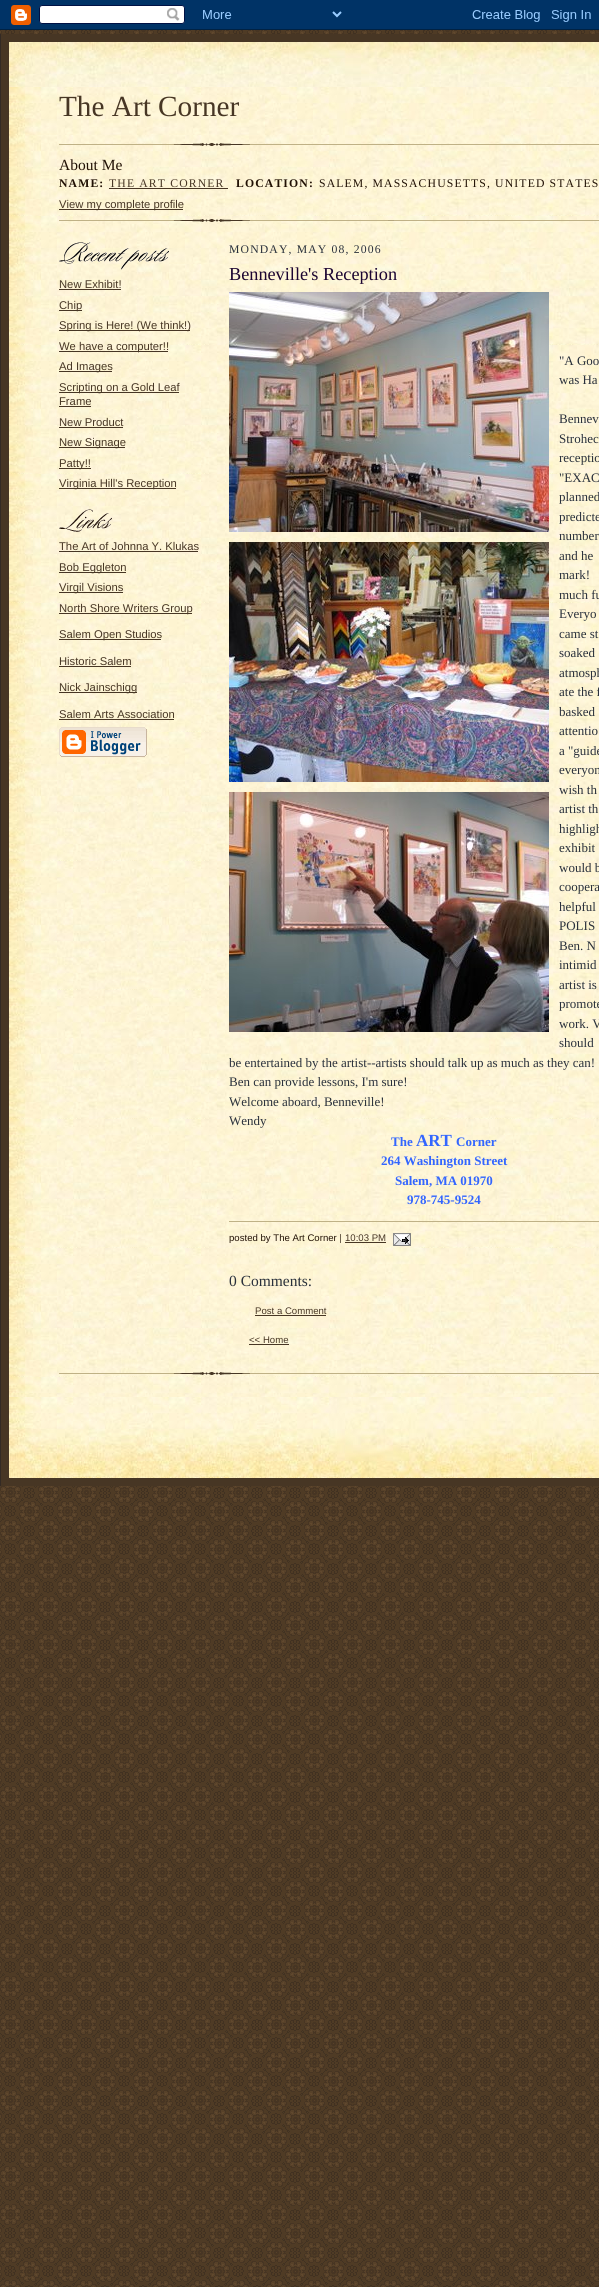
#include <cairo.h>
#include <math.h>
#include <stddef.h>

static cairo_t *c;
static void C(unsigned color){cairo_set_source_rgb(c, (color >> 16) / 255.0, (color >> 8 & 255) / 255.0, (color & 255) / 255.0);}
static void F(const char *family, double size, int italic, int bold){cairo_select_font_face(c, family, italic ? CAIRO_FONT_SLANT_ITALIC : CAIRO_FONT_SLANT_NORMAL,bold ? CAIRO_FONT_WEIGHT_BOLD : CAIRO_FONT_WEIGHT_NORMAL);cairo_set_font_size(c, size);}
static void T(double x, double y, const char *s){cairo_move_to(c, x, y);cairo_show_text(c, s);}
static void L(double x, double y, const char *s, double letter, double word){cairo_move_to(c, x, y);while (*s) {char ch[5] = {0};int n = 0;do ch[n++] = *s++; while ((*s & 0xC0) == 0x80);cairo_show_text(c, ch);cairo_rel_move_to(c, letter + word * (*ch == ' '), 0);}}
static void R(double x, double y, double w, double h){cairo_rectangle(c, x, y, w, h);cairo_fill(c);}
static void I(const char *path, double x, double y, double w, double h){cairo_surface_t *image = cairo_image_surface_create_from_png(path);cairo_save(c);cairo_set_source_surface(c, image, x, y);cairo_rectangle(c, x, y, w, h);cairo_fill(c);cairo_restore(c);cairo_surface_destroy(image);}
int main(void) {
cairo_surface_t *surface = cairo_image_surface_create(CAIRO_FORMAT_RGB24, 599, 2287);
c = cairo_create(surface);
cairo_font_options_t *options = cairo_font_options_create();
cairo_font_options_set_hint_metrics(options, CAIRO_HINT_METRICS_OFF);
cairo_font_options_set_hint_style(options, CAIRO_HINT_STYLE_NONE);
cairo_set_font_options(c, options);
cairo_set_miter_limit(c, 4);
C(0xffffff);
cairo_paint(c);
I("1.png",0,30,599,2257);
I("2.png",0,0,599,30);
C(0x473624);
R(1,34,598,1452);
C(0x332a24);
R(0,34,1,1452);
I("3.png",9,42,590,45);
I("4.png",9,87,590,1310);
F("Liberation Serif",29.25,0,0);
C(0x473624);
T(59,116,"The Art Corner");
I("5.png",59,143,540,3);
F("Liberation Serif",15.5,0,0);
C(0x211104);
T(59,170,"About Me");
F("Liberation Serif",11.7,0,1);
L(59,187,"NAME:",1.15,0);
F("Liberation Serif",11.7,0,0);
C(0x473624);
L(109,187,"THE ART CORNER",1.15,0);
R(109,188,119,1);
F("Liberation Serif",11.7,0,1);
C(0x211104);
L(236,187,"LOCATION:",1.15,0);
F("Liberation Serif",11.7,0,0);
L(319,187,"SALEM, MASSACHUSETTS, UNITED STATES",1.15,0);
C(0x473624);
R(59,209,124,1);
F("Liberation Sans",11.25,0,0);
T(59,208,"View my complete profile");
I("6.png",59,219,540,3);
I("7.png",59,242,110,28);
T(59,288,"New Exhibit!");
R(59,289,62,1);
R(59,310,23,1);
T(59,309,"Chip");
R(59,330,131,1);
T(59,329,"Spring is Here! (We think!)");
R(59,351,109,1);
T(59,350,"We have a computer!!");
R(59,371,53,1);
T(59,370,"Ad Images");
R(59,392,120,1);
T(59,391,"Scripting on a Gold Leaf");
T(59,405,"Frame");
R(59,406,32,1);
T(59,426,"New Product");
R(59,427,64,1);
R(59,447,66,1);
T(59,446,"New Signage");
R(59,468,32,1);
T(59,467,"Patty!!");
R(59,488,117,1);
T(59,487,"Virginia Hill's Reception");
I("8.png",59,509,53,23);
T(59,550,"The Art of Johnna Y. Klukas");
R(59,551,139,1);
R(59,572,67,1);
T(59,571,"Bob Eggleton");
R(59,592,64,1);
T(59,591,"Virgil Visions");
R(59,613,133,1);
T(59,612,"North Shore Writers Group");
R(59,639,102,1);
T(59,638,"Salem Open Studios");
T(59,665,"Historic Salem");
R(59,666,72,1);
R(59,692,78,1);
T(59,691,"Nick Jainschigg");
T(59,718,"Salem Arts Association");
R(59,719,115,1);
I("9.png",59,727,88,30);
F("Liberation Serif",11.7,0,0);
C(0x29303b);
L(229,253,"MONDAY, MAY 08, 2006",1.15,0);
F("Liberation Serif",18.25,0,0);
C(0x1b0431);
T(229,280,"Benneville's Reception");
I("10.png",229,292,320,240);
F("Liberation Serif",13,0,0);
C(0x29303b);
T(559,365,"\"A Goo");
T(559,384,"was Ha");
T(559,423,"Bennev");
T(559,443,"Strohec");
T(559,462,"receptio");
T(559,482,"\"EXAC");
T(559,501,"planned");
T(559,521,"predicte");
T(559,540,"number");
I("11.png",229,542,320,240);
T(559,560,"and he");
T(559,579,"mark!");
T(559,599,"much fu");
T(559,618,"Everyo");
T(559,638,"came st");
T(559,657,"soaked");
T(559,677,"atmosph");
T(559,696,"ate the f");
T(559,716,"basked");
T(559,735,"attentio");
T(559,755,"a \"guide");
T(559,774,"everyon");
T(559,794,"wish th");
I("12.png",229,792,320,240);
T(559,813,"artist th");
T(559,833,"highligh");
T(559,852,"exhibit");
T(559,872,"would b");
T(559,891,"coopera");
T(559,911,"helpful");
T(559,930,"POLIS");
T(559,950,"Ben. N");
T(559,969,"intimid");
T(559,989,"artist is");
T(559,1008,"promote");
T(559,1028,"work. V");
T(559,1047,"should");
T(229,1067,"be entertained by the artist--artists should talk up as much as they can!");
T(229,1086,"Ben can provide lessons, I'm sure!");
T(229,1106,"Welcome aboard, Benneville!");
T(229,1125,"Wendy");
F("Liberation Serif",13,0,1);
C(0x3366ff);
T(391,1146,"The");
F("Liberation Serif",17,0,1);
T(416,1146,"ART");
F("Liberation Serif",13,0,1);
T(456,1146,"Corner");
T(381,1165,"264 Washington Street");
T(395,1185,"Salem, MA 01970");
T(407,1204,"978-745-9524");
C(0xbfb186);
R(229,1221,370,1);
F("Liberation Sans",9.6,0,0);
C(0x211104);
T(229,1241,"posted by The Art Corner |");
C(0x473624);
T(345,1241,"10:03 PM");
R(345,1242,41,1);
I("13.png",393,1233,18,13);
F("Liberation Serif",15.5,0,0);
C(0x29303b);
T(229,1286,"0 Comments:");
F("Liberation Sans",9.6,0,0);
C(0x473624);
T(255,1314,"Post a Comment");
R(255,1315,71,1);
T(249,1343,"<< Home");
R(249,1344,40,1);
I("14.png",59,1372,540,3);
I("15.png",9,1397,590,81);
cairo_surface_write_to_png(surface, "o.png");
cairo_font_options_destroy(options);
cairo_destroy(c);
cairo_surface_destroy(surface);
return 0;
}
